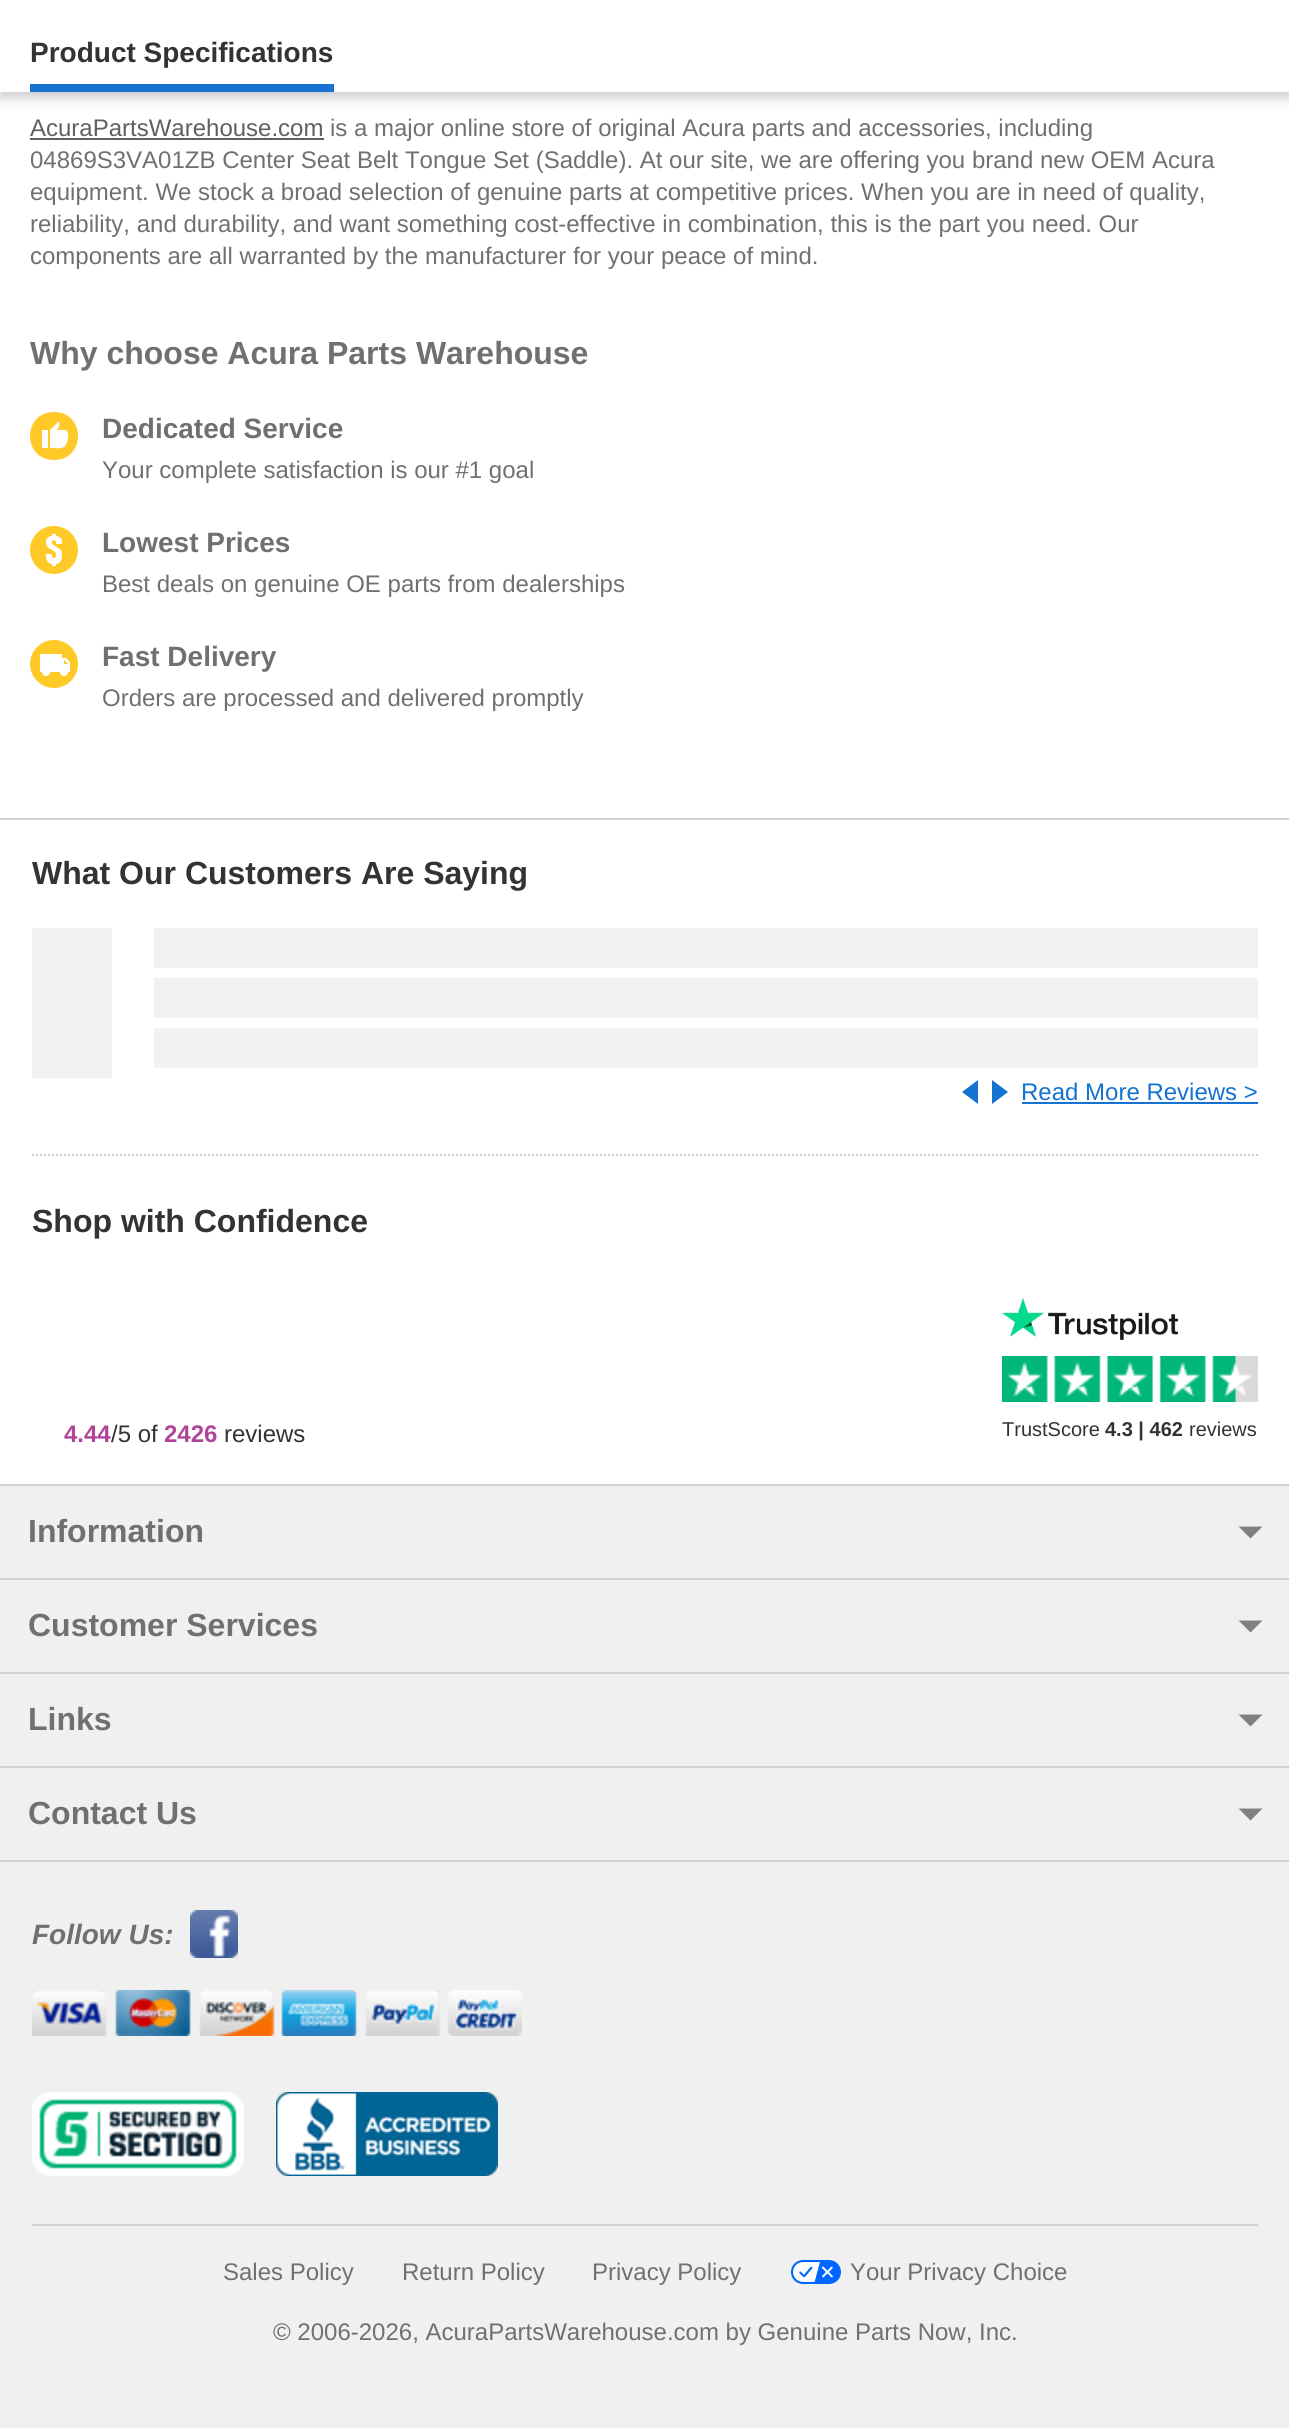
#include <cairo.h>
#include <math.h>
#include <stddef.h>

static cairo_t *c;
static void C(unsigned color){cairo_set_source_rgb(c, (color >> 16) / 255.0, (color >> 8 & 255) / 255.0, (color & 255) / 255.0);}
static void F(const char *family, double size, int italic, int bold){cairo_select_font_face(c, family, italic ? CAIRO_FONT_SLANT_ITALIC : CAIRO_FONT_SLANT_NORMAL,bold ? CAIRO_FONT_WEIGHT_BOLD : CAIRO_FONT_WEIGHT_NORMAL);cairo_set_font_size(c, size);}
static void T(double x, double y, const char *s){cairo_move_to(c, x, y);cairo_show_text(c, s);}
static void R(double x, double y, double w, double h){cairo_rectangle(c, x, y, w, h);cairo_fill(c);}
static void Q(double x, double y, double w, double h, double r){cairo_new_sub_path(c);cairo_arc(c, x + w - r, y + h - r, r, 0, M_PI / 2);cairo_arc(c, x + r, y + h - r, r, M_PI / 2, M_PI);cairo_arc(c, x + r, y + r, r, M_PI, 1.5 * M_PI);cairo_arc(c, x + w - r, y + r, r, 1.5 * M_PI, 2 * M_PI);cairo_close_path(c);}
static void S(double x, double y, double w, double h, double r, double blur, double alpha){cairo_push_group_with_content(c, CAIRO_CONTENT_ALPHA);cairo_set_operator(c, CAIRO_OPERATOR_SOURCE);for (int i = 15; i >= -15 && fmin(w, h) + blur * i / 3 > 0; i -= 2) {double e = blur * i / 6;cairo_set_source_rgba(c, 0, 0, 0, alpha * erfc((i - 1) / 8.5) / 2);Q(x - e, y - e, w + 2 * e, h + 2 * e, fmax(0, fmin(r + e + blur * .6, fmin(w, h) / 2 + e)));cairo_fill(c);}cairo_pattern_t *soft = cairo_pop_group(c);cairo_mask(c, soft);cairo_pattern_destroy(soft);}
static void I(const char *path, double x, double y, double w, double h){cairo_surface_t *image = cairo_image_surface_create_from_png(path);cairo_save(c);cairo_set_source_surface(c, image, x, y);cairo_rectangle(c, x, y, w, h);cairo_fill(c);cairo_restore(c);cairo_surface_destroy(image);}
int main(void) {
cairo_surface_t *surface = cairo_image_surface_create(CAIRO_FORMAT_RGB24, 1289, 2428);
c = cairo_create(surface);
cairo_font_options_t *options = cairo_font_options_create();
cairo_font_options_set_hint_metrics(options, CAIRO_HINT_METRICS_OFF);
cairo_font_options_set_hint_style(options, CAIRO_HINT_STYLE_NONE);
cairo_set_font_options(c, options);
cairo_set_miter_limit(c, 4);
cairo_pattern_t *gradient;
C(0xffffff);
cairo_paint(c);
C(0x000000);
S(0,6,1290,92,0,6,.2);
C(0xffffff);
R(0,0,1289,92);
C(0x1972d2);
R(30,84,304,8);
F("Liberation Sans",28,0,1);
C(0x333333);
T(30,62,"Product Specifications");
F("Liberation Sans",24,0,0);
C(0x606060);
T(30,136,"AcuraPartsWarehouse.com");
R(30,138,294,2);
C(0x707070);
T(330,136,"is a major online store of original Acura parts and accessories, including");
T(30,168,"04869S3VA01ZB Center Seat Belt Tongue Set (Saddle). At our site, we are offering you brand new OEM Acura");
T(30,200,"equipment. We stock a broad selection of genuine parts at competitive prices. When you are in need of quality,");
T(30,232,"reliability, and durability, and want something cost-effective in combination, this is the part you need. Our");
T(30,264,"components are all warranted by the manufacturer for your peace of mind.");
F("Liberation Sans",32,0,1);
T(30,364,"Why choose Acura Parts Warehouse");
C(0xffca28);
cairo_set_fill_rule(c,CAIRO_FILL_RULE_EVEN_ODD);
cairo_new_path(c);
cairo_move_to(c,54,412);
cairo_curve_to(c,86,412,86,460,54,460);
cairo_curve_to(c,22,460,22,412,54,412);
cairo_close_path(c);
cairo_move_to(c,42,430);
cairo_line_to(c,48,430);
cairo_line_to(c,48,448);
cairo_line_to(c,42,448);
cairo_close_path(c);
cairo_move_to(c,50,430);
cairo_line_to(c,58,422);
cairo_curve_to(c,62,422,58,430,56,430);
cairo_curve_to(c,65,430,69,428,68,438);
cairo_curve_to(c,66,451,60,448,50,448);
cairo_close_path(c);
cairo_fill(c);
F("Liberation Sans",28,0,1);
C(0x707070);
T(102,438,"Dedicated Service");
F("Liberation Sans",24,0,0);
T(102,478,"Your complete satisfaction is our #1 goal");
I("1.png",30,526,48,48);
F("Liberation Sans",28,0,1);
T(102,552,"Lowest Prices");
F("Liberation Sans",24,0,0);
T(102,592,"Best deals on genuine OE parts from dealerships");
I("2.png",30,640,48,48);
F("Liberation Sans",28,0,1);
T(102,666,"Fast Delivery");
F("Liberation Sans",24,0,0);
T(102,706,"Orders are processed and delivered promptly");
C(0xd0d0d0);
R(0,818,1289,2);
F("Liberation Sans",32,0,1);
C(0x333333);
T(32,884,"What Our Customers Are Saying");
gradient = cairo_pattern_create_linear(32,1003,352,1003);
cairo_pattern_add_color_stop_rgba(gradient,.25,0.949,0.949,0.949,1);
cairo_pattern_add_color_stop_rgba(gradient,.37,0.902,0.902,0.902,1);
cairo_pattern_add_color_stop_rgba(gradient,.63,0.949,0.949,0.949,1);
cairo_set_source(c,gradient);
cairo_pattern_destroy(gradient);
R(32,928,80,150);
gradient = cairo_pattern_create_linear(154,948,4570,948);
cairo_pattern_add_color_stop_rgba(gradient,.25,0.949,0.949,0.949,1);
cairo_pattern_add_color_stop_rgba(gradient,.37,0.902,0.902,0.902,1);
cairo_pattern_add_color_stop_rgba(gradient,.63,0.949,0.949,0.949,1);
cairo_set_source(c,gradient);
cairo_pattern_destroy(gradient);
R(154,928,1104,40);
gradient = cairo_pattern_create_linear(154,998,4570,998);
cairo_pattern_add_color_stop_rgba(gradient,.25,0.949,0.949,0.949,1);
cairo_pattern_add_color_stop_rgba(gradient,.37,0.902,0.902,0.902,1);
cairo_pattern_add_color_stop_rgba(gradient,.63,0.949,0.949,0.949,1);
cairo_set_source(c,gradient);
cairo_pattern_destroy(gradient);
R(154,978,1104,40);
gradient = cairo_pattern_create_linear(154,1048,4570,1048);
cairo_pattern_add_color_stop_rgba(gradient,.25,0.949,0.949,0.949,1);
cairo_pattern_add_color_stop_rgba(gradient,.37,0.902,0.902,0.902,1);
cairo_pattern_add_color_stop_rgba(gradient,.63,0.949,0.949,0.949,1);
cairo_set_source(c,gradient);
cairo_pattern_destroy(gradient);
R(154,1028,1104,40);
C(0x1372d2);
cairo_set_fill_rule(c,CAIRO_FILL_RULE_WINDING);
cairo_new_path(c);
cairo_move_to(c,978,1080);
cairo_line_to(c,978,1104);
cairo_line_to(c,962,1092);
cairo_close_path(c);
cairo_move_to(c,992,1104);
cairo_line_to(c,992,1080);
cairo_line_to(c,1008,1092);
cairo_close_path(c);
cairo_fill(c);
F("Liberation Sans",24,0,0);
T(1021,1100,"Read More Reviews >");
R(1022,1102,236,2);
cairo_new_path(c);
cairo_move_to(c,32,1155);
cairo_line_to(c,1258,1155);
C(0xd0d0d0);
cairo_set_dash(c,(double[]){2,2},2,0);
cairo_stroke(c);
F("Liberation Sans",32,0,1);
C(0x333333);
T(32,1232,"Shop with Confidence");
F("Liberation Sans",24,0,1);
C(0xaf4499);
T(64,1442,"4.44");
F("Liberation Sans",24,0,0);
C(0x333333);
T(111,1442,"/5 of");
F("Liberation Sans",24,0,1);
C(0xaf4499);
T(164,1442,"2426");
F("Liberation Sans",24,0,0);
C(0x333333);
T(224,1442,"reviews");
I("3.png",1002,1298,176,42);
I("4.png",1002,1356,256,46);
F("Liberation Sans",20,0,0);
T(1002,1436,"TrustScore");
F("Liberation Sans",20,0,1);
T(1105,1436,"4.3 | 462");
F("Liberation Sans",20,0,0);
T(1189,1436,"reviews");
C(0xf0f0f0);
R(0,1486,1289,942);
C(0xd0d0d0);
R(0,1484,1289,2);
R(0,1578,1289,2);
F("Liberation Sans",32,0,1);
C(0x707070);
T(28,1542,"Information");
C(0x808080);
cairo_set_fill_rule(c,CAIRO_FILL_RULE_EVEN_ODD);
cairo_new_path(c);
cairo_move_to(c,1262.5,1526.5);
cairo_line_to(c,1250.5,1538.5);
cairo_line_to(c,1238.5,1526.5);
cairo_close_path(c);
cairo_fill(c);
C(0xd0d0d0);
R(0,1672,1289,2);
C(0x707070);
T(28,1636,"Customer Services");
C(0x808080);
cairo_new_path(c);
cairo_move_to(c,1262.5,1620.5);
cairo_line_to(c,1250.5,1632.5);
cairo_line_to(c,1238.5,1620.5);
cairo_close_path(c);
cairo_fill(c);
C(0xd0d0d0);
R(0,1766,1289,2);
C(0x707070);
T(28,1730,"Links");
C(0x808080);
cairo_new_path(c);
cairo_move_to(c,1262.5,1714.5);
cairo_line_to(c,1250.5,1726.5);
cairo_line_to(c,1238.5,1714.5);
cairo_close_path(c);
cairo_fill(c);
C(0xd0d0d0);
R(0,1860,1289,2);
C(0x707070);
T(28,1824,"Contact Us");
C(0x808080);
cairo_new_path(c);
cairo_move_to(c,1262.5,1808.5);
cairo_line_to(c,1250.5,1820.5);
cairo_line_to(c,1238.5,1808.5);
cairo_close_path(c);
cairo_fill(c);
F("Liberation Sans",28,1,1);
C(0x707070);
T(32,1944,"Follow Us:");
I("5.png",190,1910,48,48);
I("6.png",32,1990,490,46);
I("7.png",32,2092,212,84);
I("8.png",276,2092,222,84);
C(0xd0d0d0);
R(32,2224,1226,2);
F("Liberation Sans",24,0,0);
C(0x707070);
T(223,2280,"Sales Policy");
T(402,2280,"Return Policy");
T(592,2280,"Privacy Policy");
I("9.png",791,2260,50,24);
T(850,2280,"Your Privacy Choice");
T(273,2340,"© 2006-2026, AcuraPartsWarehouse.com by Genuine Parts Now, Inc.");
cairo_surface_write_to_png(surface, "o.png");
cairo_font_options_destroy(options);
cairo_destroy(c);
cairo_surface_destroy(surface);
return 0;
}
